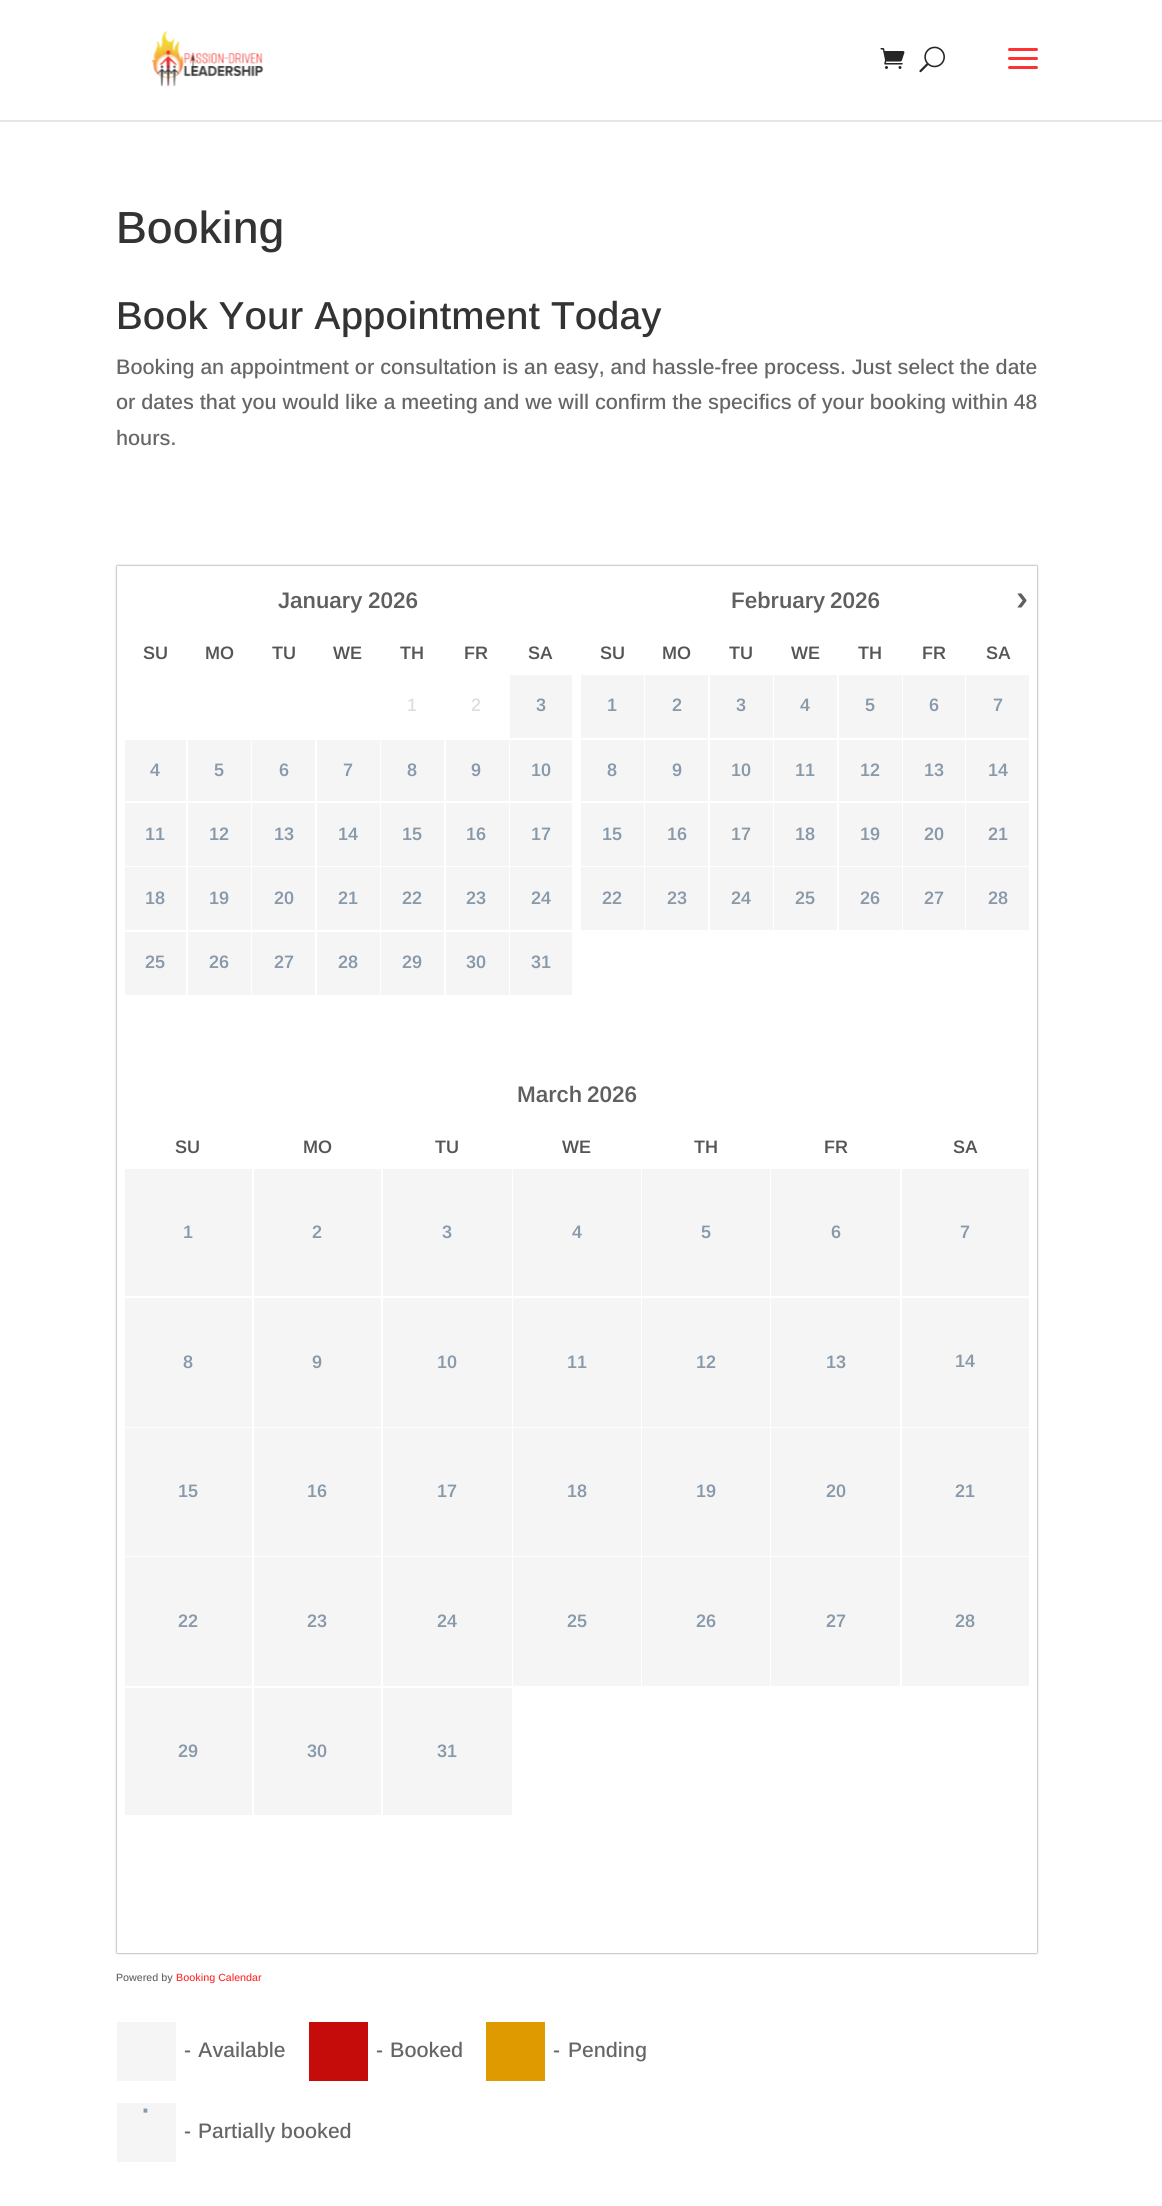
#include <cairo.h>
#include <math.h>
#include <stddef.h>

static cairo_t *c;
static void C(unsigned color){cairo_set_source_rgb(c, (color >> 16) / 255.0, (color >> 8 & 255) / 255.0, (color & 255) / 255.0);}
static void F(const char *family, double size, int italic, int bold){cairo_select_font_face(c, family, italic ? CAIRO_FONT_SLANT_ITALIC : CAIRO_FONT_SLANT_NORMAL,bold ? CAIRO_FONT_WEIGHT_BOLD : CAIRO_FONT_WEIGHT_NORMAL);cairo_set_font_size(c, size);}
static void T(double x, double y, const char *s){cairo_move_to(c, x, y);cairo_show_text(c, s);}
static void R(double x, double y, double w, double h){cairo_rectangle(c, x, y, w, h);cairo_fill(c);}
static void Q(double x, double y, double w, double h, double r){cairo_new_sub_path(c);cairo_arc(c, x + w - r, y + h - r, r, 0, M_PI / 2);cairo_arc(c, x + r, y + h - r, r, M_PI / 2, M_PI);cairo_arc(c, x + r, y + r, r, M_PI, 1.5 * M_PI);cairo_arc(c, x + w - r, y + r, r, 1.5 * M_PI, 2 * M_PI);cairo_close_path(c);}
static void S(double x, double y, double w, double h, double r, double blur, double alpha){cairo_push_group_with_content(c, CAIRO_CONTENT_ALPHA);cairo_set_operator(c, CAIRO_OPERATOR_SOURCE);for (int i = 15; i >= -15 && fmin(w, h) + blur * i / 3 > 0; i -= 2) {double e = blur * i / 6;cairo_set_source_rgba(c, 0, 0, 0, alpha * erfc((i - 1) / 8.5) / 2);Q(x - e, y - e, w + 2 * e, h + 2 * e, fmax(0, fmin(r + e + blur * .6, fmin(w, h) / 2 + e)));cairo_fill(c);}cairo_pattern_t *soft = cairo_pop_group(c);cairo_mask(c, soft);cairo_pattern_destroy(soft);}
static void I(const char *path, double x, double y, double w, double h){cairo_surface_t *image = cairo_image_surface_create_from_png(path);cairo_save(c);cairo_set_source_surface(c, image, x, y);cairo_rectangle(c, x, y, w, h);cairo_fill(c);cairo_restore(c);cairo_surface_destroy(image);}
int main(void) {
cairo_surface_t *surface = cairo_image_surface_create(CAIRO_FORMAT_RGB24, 1162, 2206);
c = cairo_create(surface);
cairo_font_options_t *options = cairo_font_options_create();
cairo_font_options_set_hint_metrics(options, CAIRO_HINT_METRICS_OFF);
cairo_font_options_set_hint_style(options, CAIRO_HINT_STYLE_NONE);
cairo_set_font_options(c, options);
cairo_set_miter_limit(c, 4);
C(0xffffff);
cairo_paint(c);
C(0xe6e6e6);
cairo_new_path(c);
cairo_move_to(c,0,120);
cairo_line_to(c,0,122);
cairo_line_to(c,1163,122);
cairo_line_to(c,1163,2);
cairo_line_to(c,1162,2);
cairo_line_to(c,1162,120);
cairo_close_path(c);
cairo_fill(c);
I("1.png",151,31,113,56);
I("2.png",880,48,25,21);
I("3.png",919,46,26,27);
I("4.png",1008,48,30,21);
F("Arimo Medium",45,0,0);
C(0x333333);
T(116,243,"Booking");
F("Arimo Medium",39,0,0);
T(116,329,"Book Your Appointment Today");
F("Arimo Medium",21,0,0);
C(0x666666);
T(116,374,"Booking an appointment or consultation is an easy, and hassle-free process. Just select the date");
T(116,409,"or dates that you would like a meeting and we will confirm the specifics of your booking within 48");
T(116,445,"hours.");
C(0x707070);
S(117,566,920,1387,0,1,1);
C(0xffffff);
R(117,566,920,1387);
F("Arimo SemiBold",22.5,0,0);
C(0x5f5f5f);
T(278,608,"January");
T(368,608,"2026");
F("Arimo SemiBold",18,0,0);
C(0x555555);
T(143,659,"SU");
T(205,659,"MO");
T(272,659,"TU");
T(333,659,"WE");
T(400,659,"TH");
T(464,659,"FR");
T(528,659,"SA");
F("Arimo Medium",18,0,0);
C(0xdddddd);
T(407,711,"1");
T(471,711,"2");
C(0xf5f5f5);
R(510,675,62,63);
F("Arimo SemiBold",18,0,0);
C(0x8899aa);
T(536,711,"3");
C(0xf5f5f5);
R(125,740,61,61);
C(0x8899aa);
T(150,776,"4");
C(0xf5f5f5);
R(188,740,63,61);
C(0x8899aa);
T(214,776,"5");
C(0xf5f5f5);
R(252,740,63,61);
C(0x8899aa);
T(279,776,"6");
C(0xf5f5f5);
R(317,740,63,61);
C(0x8899aa);
T(343,776,"7");
C(0xf5f5f5);
R(381,740,63,61);
C(0x8899aa);
T(407,776,"8");
C(0xf5f5f5);
R(446,740,63,61);
C(0x8899aa);
T(471,776,"9");
C(0xf5f5f5);
R(510,740,62,61);
C(0x8899aa);
T(531,776,"10");
C(0xf5f5f5);
R(125,803,61,63);
C(0x8899aa);
T(145,840,"11");
C(0xf5f5f5);
R(188,803,63,63);
C(0x8899aa);
T(209,840,"12");
C(0xf5f5f5);
R(252,803,63,63);
C(0x8899aa);
T(274,840,"13");
C(0xf5f5f5);
R(317,803,63,63);
C(0x8899aa);
T(338,840,"14");
C(0xf5f5f5);
R(381,803,63,63);
C(0x8899aa);
T(402,840,"15");
C(0xf5f5f5);
R(446,803,63,63);
C(0x8899aa);
T(466,840,"16");
C(0xf5f5f5);
R(510,803,62,63);
C(0x8899aa);
T(531,840,"17");
C(0xf5f5f5);
R(125,867,61,63);
C(0x8899aa);
T(145,904,"18");
C(0xf5f5f5);
R(188,867,63,63);
C(0x8899aa);
T(209,904,"19");
C(0xf5f5f5);
R(252,867,63,63);
C(0x8899aa);
T(274,904,"20");
C(0xf5f5f5);
R(317,867,63,63);
C(0x8899aa);
T(338,904,"21");
C(0xf5f5f5);
R(381,867,63,63);
C(0x8899aa);
T(402,904,"22");
C(0xf5f5f5);
R(446,867,63,63);
C(0x8899aa);
T(466,904,"23");
C(0xf5f5f5);
R(510,867,62,63);
C(0x8899aa);
T(531,904,"24");
C(0xf5f5f5);
R(125,932,61,63);
C(0x8899aa);
T(145,968,"25");
C(0xf5f5f5);
R(188,932,63,63);
C(0x8899aa);
T(209,968,"26");
C(0xf5f5f5);
R(252,932,63,63);
C(0x8899aa);
T(274,968,"27");
C(0xf5f5f5);
R(317,932,63,63);
C(0x8899aa);
T(338,968,"28");
C(0xf5f5f5);
R(381,932,63,63);
C(0x8899aa);
T(402,968,"29");
C(0xf5f5f5);
R(446,932,63,63);
C(0x8899aa);
T(466,968,"30");
C(0xf5f5f5);
R(510,932,62,63);
C(0x8899aa);
T(531,968,"31");
F("Arimo SemiBold",22.5,0,0);
C(0x5f5f5f);
T(731,608,"February");
T(830,608,"2026");
F("Arimo SemiBold",18,0,0);
C(0x555555);
T(600,659,"SU");
T(662,659,"MO");
T(729,659,"TU");
T(791,659,"WE");
T(858,659,"TH");
T(922,659,"FR");
T(986,659,"SA");
C(0xf5f5f5);
R(581,675,63,63);
C(0x8899aa);
T(607,711,"1");
C(0xf5f5f5);
R(645,675,63,63);
C(0x8899aa);
T(672,711,"2");
C(0xf5f5f5);
R(710,675,63,63);
C(0x8899aa);
T(736,711,"3");
C(0xf5f5f5);
R(774,675,63,63);
C(0x8899aa);
T(800,711,"4");
C(0xf5f5f5);
R(839,675,63,63);
C(0x8899aa);
T(865,711,"5");
C(0xf5f5f5);
R(903,675,62,63);
C(0x8899aa);
T(929,711,"6");
C(0xf5f5f5);
R(966,675,63,63);
C(0x8899aa);
T(993,711,"7");
C(0xf5f5f5);
R(581,740,63,61);
C(0x8899aa);
T(607,776,"8");
C(0xf5f5f5);
R(645,740,63,61);
C(0x8899aa);
T(672,776,"9");
C(0xf5f5f5);
R(710,740,63,61);
C(0x8899aa);
T(731,776,"10");
C(0xf5f5f5);
R(774,740,63,61);
C(0x8899aa);
T(795,776,"11");
C(0xf5f5f5);
R(839,740,63,61);
C(0x8899aa);
T(860,776,"12");
C(0xf5f5f5);
R(903,740,62,61);
C(0x8899aa);
T(924,776,"13");
C(0xf5f5f5);
R(966,740,63,61);
C(0x8899aa);
T(988,776,"14");
C(0xf5f5f5);
R(581,803,63,63);
C(0x8899aa);
T(602,840,"15");
C(0xf5f5f5);
R(645,803,63,63);
C(0x8899aa);
T(667,840,"16");
C(0xf5f5f5);
R(710,803,63,63);
C(0x8899aa);
T(731,840,"17");
C(0xf5f5f5);
R(774,803,63,63);
C(0x8899aa);
T(795,840,"18");
C(0xf5f5f5);
R(839,803,63,63);
C(0x8899aa);
T(860,840,"19");
C(0xf5f5f5);
R(903,803,62,63);
C(0x8899aa);
T(924,840,"20");
C(0xf5f5f5);
R(966,803,63,63);
C(0x8899aa);
T(988,840,"21");
C(0xf5f5f5);
R(581,867,63,63);
C(0x8899aa);
T(602,904,"22");
C(0xf5f5f5);
R(645,867,63,63);
C(0x8899aa);
T(667,904,"23");
C(0xf5f5f5);
R(710,867,63,63);
C(0x8899aa);
T(731,904,"24");
C(0xf5f5f5);
R(774,867,63,63);
C(0x8899aa);
T(795,904,"25");
C(0xf5f5f5);
R(839,867,63,63);
C(0x8899aa);
T(860,904,"26");
C(0xf5f5f5);
R(903,867,62,63);
C(0x8899aa);
T(924,904,"27");
C(0xf5f5f5);
R(966,867,63,63);
C(0x8899aa);
T(988,904,"28");
F("Arimo SemiBold",36,0,0);
C(0x5f5f5f);
T(1016,610,"›");
F("Arimo SemiBold",22.5,0,0);
T(517,1102,"March");
T(587,1102,"2026");
F("Arimo SemiBold",18,0,0);
C(0x555555);
T(175,1153,"SU");
T(303,1153,"MO");
T(435,1153,"TU");
T(562,1153,"WE");
T(694,1153,"TH");
T(824,1153,"FR");
T(953,1153,"SA");
C(0xf5f5f5);
R(125,1169,127,127);
C(0x8899aa);
T(183,1238,"1");
C(0xf5f5f5);
R(254,1169,127,127);
C(0x8899aa);
T(312,1238,"2");
C(0xf5f5f5);
R(383,1169,129,127);
C(0x8899aa);
T(442,1238,"3");
C(0xf5f5f5);
R(513,1169,128,127);
C(0x8899aa);
T(572,1238,"4");
C(0xf5f5f5);
R(642,1169,128,127);
C(0x8899aa);
T(701,1238,"5");
C(0xf5f5f5);
R(771,1169,129,127);
C(0x8899aa);
T(831,1238,"6");
C(0xf5f5f5);
R(902,1169,127,127);
C(0x8899aa);
T(960,1238,"7");
C(0xf5f5f5);
R(125,1298,127,129);
C(0x8899aa);
T(183,1368,"8");
C(0xf5f5f5);
R(254,1298,127,129);
C(0x8899aa);
T(312,1368,"9");
C(0xf5f5f5);
R(383,1298,129,129);
C(0x8899aa);
T(437,1368,"10");
C(0xf5f5f5);
R(513,1298,128,129);
C(0x8899aa);
T(567,1368,"11");
C(0xf5f5f5);
R(642,1298,128,129);
C(0x8899aa);
T(696,1368,"12");
C(0xf5f5f5);
R(771,1298,129,129);
C(0x8899aa);
T(826,1368,"13");
C(0xf5f5f5);
R(902,1298,127,129);
C(0x8899aa);
T(955,1367,"14");
C(0xf5f5f5);
R(125,1428,127,128);
C(0x8899aa);
T(178,1497,"15");
C(0xf5f5f5);
R(254,1428,127,128);
C(0x8899aa);
T(307,1497,"16");
C(0xf5f5f5);
R(383,1428,129,128);
C(0x8899aa);
T(437,1497,"17");
C(0xf5f5f5);
R(513,1428,128,128);
C(0x8899aa);
T(567,1497,"18");
C(0xf5f5f5);
R(642,1428,128,128);
C(0x8899aa);
T(696,1497,"19");
C(0xf5f5f5);
R(771,1428,129,128);
C(0x8899aa);
T(826,1497,"20");
C(0xf5f5f5);
R(902,1428,127,128);
C(0x8899aa);
T(955,1497,"21");
C(0xf5f5f5);
R(125,1557,127,129);
C(0x8899aa);
T(178,1627,"22");
C(0xf5f5f5);
R(254,1557,127,129);
C(0x8899aa);
T(307,1627,"23");
C(0xf5f5f5);
R(383,1557,129,129);
C(0x8899aa);
T(437,1627,"24");
C(0xf5f5f5);
R(513,1557,128,129);
C(0x8899aa);
T(567,1627,"25");
C(0xf5f5f5);
R(642,1557,128,129);
C(0x8899aa);
T(696,1627,"26");
C(0xf5f5f5);
R(771,1557,129,129);
C(0x8899aa);
T(826,1627,"27");
C(0xf5f5f5);
R(902,1557,127,129);
C(0x8899aa);
T(955,1627,"28");
C(0xf5f5f5);
R(125,1688,127,127);
C(0x8899aa);
T(178,1757,"29");
C(0xf5f5f5);
R(254,1688,127,127);
C(0x8899aa);
T(307,1757,"30");
C(0xf5f5f5);
R(383,1688,129,127);
C(0x8899aa);
T(437,1757,"31");
F("Arimo Medium",10.5,0,0);
C(0x666666);
T(116,1981,"Powered by");
C(0xff3131);
T(176,1981,"Booking Calendar");
C(0xf5f5f5);
R(117,2022,59,59);
F("Arimo Medium",21,0,0);
C(0x666666);
T(184,2057,"-");
T(198,2057,"Available");
C(0xc60b0b);
R(309,2022,59,59);
C(0x666666);
T(376,2057,"-");
T(390,2057,"Booked");
C(0xdf9a00);
R(486,2022,59,59);
C(0x666666);
T(553,2057,"-");
T(568,2057,"Pending");
C(0xf5f5f5);
R(117,2103,59,59);
F("Arimo SemiBold",30,0,0);
C(0x8899aa);
T(141,2120,"·");
F("Arimo Medium",21,0,0);
C(0x666666);
T(184,2138,"-");
T(198,2138,"Partially booked");
cairo_surface_write_to_png(surface, "o.png");
cairo_font_options_destroy(options);
cairo_destroy(c);
cairo_surface_destroy(surface);
return 0;
}
